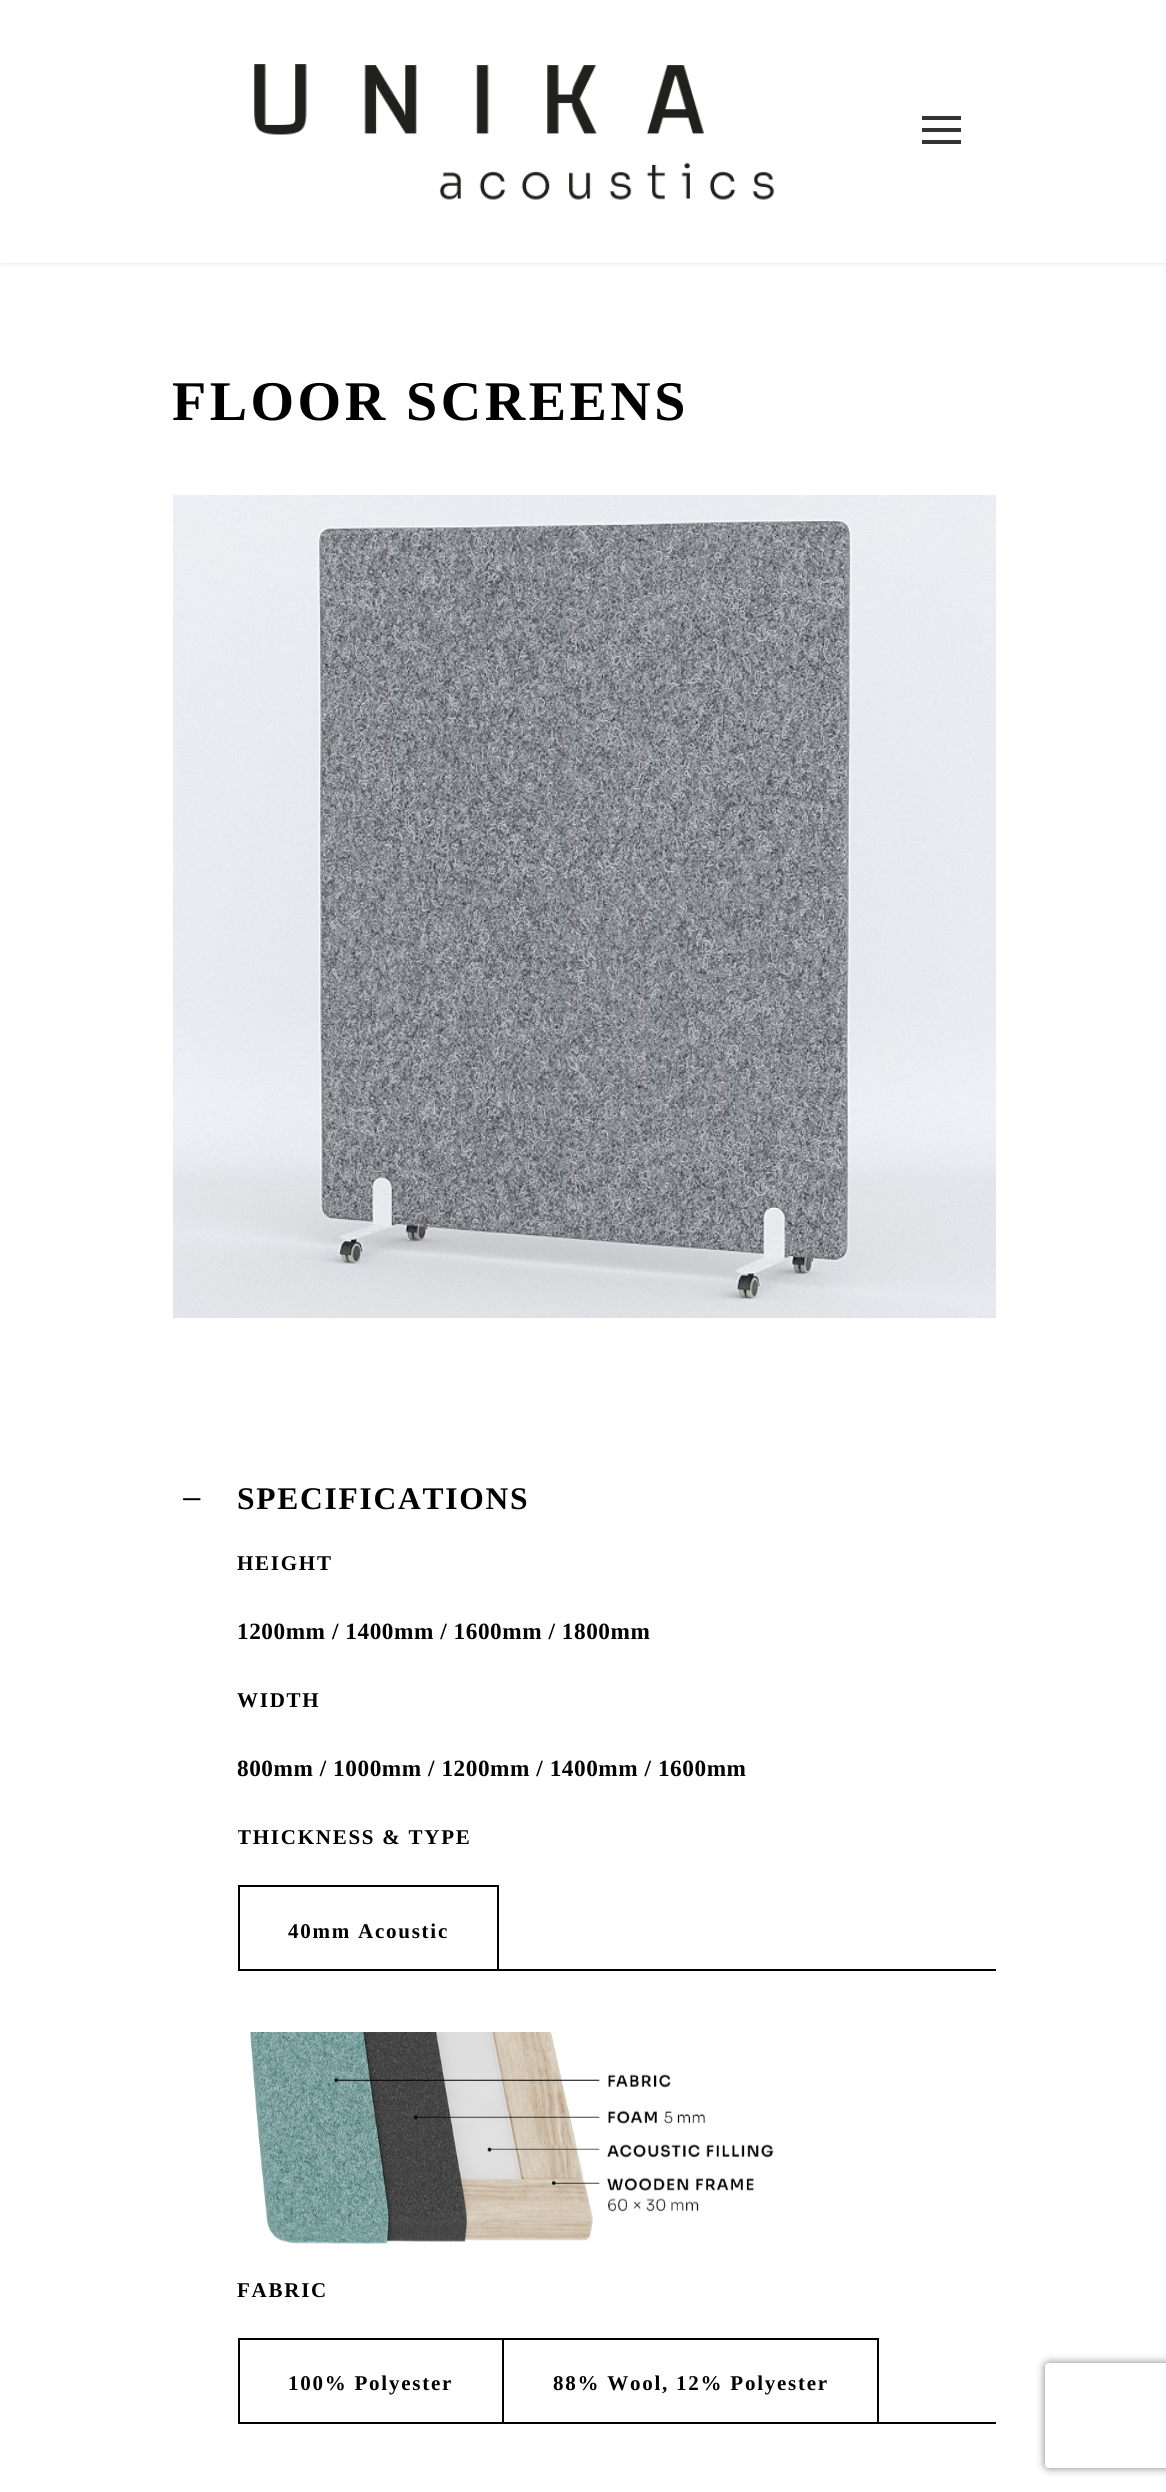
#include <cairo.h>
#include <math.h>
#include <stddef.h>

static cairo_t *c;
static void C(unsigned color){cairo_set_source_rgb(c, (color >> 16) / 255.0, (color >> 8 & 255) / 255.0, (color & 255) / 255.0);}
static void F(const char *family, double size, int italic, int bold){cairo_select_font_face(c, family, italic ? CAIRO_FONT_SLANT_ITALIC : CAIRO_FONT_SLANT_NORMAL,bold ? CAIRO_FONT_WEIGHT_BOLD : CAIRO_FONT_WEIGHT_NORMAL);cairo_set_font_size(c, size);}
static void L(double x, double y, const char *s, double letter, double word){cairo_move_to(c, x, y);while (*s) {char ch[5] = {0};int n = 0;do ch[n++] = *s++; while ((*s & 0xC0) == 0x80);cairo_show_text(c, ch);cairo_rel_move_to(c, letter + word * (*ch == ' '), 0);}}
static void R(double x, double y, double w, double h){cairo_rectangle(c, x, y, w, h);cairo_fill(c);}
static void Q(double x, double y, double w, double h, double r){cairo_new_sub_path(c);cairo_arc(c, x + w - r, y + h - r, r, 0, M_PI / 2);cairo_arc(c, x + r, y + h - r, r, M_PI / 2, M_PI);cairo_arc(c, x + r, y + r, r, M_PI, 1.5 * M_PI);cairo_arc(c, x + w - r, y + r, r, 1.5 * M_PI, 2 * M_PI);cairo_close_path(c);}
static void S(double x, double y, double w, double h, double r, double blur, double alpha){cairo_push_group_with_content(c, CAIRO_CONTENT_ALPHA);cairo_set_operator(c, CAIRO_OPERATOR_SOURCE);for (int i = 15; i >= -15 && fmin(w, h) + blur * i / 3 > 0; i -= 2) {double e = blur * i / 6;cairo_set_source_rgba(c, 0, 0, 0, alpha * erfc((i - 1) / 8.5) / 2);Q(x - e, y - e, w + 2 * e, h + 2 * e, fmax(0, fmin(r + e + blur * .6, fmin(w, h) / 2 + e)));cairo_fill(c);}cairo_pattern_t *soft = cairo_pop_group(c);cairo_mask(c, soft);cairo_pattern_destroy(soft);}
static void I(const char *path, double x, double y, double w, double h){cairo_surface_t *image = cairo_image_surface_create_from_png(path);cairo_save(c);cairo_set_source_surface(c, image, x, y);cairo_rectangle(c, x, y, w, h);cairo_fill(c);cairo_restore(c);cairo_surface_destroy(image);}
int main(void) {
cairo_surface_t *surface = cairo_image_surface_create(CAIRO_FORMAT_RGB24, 1166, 2492);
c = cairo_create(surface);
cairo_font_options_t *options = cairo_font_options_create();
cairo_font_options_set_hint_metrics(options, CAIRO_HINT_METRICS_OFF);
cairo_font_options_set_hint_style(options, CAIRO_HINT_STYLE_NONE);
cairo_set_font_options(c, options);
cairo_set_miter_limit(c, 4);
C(0xffffff);
cairo_paint(c);
cairo_save(c);
cairo_set_fill_rule(c,CAIRO_FILL_RULE_EVEN_ODD);
cairo_new_path(c);
cairo_move_to(c,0,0);
cairo_line_to(c,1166,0);
cairo_line_to(c,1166,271);
cairo_line_to(c,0,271);
cairo_close_path(c);
cairo_move_to(c,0,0);
cairo_line_to(c,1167,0);
cairo_line_to(c,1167,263);
cairo_line_to(c,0,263);
cairo_close_path(c);
cairo_clip(c);
C(0x000000);
S(0,2,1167,262,0,2,.1);
cairo_restore(c);
I("1.png",254,64,520,136);
C(0x333333);
R(922,116,39,4);
R(922,128,39,4);
R(922,140,39,4);
F("Liberation Serif",56,0,1);
C(0x000000);
L(172,420,"FLOOR SCREENS",3.5,0);
I("2.png",173,495,823,823);
I("3.png",182,1498,19,3);
F("Liberation Serif",31.5,0,1);
L(237,1509,"SPECIFICATIONS",1.75,0);
F("Liberation Serif",21,0,1);
L(237,1570,"HEIGHT",1.75,0);
F("Liberation Serif",23.25,0,1);
L(237,1639,"1200mm / 1400mm / 1600mm / 1800mm",.55,0);
F("Liberation Serif",21,0,1);
L(237,1707,"WIDTH",1.75,0);
F("Liberation Serif",23.25,0,1);
L(237,1776,"800mm / 1000mm / 1200mm / 1400mm / 1600mm",.55,0);
cairo_save(c);
cairo_rectangle(c,238,1481,758,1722);
cairo_clip(c);
F("Liberation Serif",21,0,1);
L(237,1844,"THICKNESS & TYPE",1.75,0);
cairo_restore(c);
R(238,1969,758,2);
R(238,1885,261,2);
R(497,1885,2,86);
R(238,1885,2,86);
F("Liberation Serif",21,0,1);
L(288,1938,"40mm Acoustic",1.75,0);
I("4.png",250,2032,524,212);
L(237,2297,"FABRIC",1.75,0);
R(238,2422,758,2);
R(238,2338,266,2);
R(502,2338,2,86);
R(238,2338,2,86);
L(288,2390,"100% Polyester",1.75,0);
R(502,2338,377,2);
R(877,2338,2,84);
L(553,2390,"88% Wool, 12% Polyester",1.75,0);
cairo_save(c);
cairo_set_fill_rule(c,CAIRO_FILL_RULE_EVEN_ODD);
cairo_new_path(c);
cairo_move_to(c,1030,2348);
cairo_line_to(c,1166,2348);
cairo_line_to(c,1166,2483);
cairo_line_to(c,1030,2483);
cairo_close_path(c);
cairo_move_to(c,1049,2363);
cairo_line_to(c,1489,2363);
cairo_curve_to(c,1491,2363,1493,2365,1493,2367);
cairo_line_to(c,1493,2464);
cairo_curve_to(c,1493,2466,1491,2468,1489,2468);
cairo_line_to(c,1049,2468);
cairo_curve_to(c,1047,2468,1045,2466,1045,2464);
cairo_line_to(c,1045,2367);
cairo_curve_to(c,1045,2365,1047,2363,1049,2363);
cairo_close_path(c);
cairo_clip(c);
C(0x808080);
S(1045,2363,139,105,4,4.5,1);
cairo_restore(c);
cairo_surface_write_to_png(surface, "o.png");
cairo_font_options_destroy(options);
cairo_destroy(c);
cairo_surface_destroy(surface);
return 0;
}
